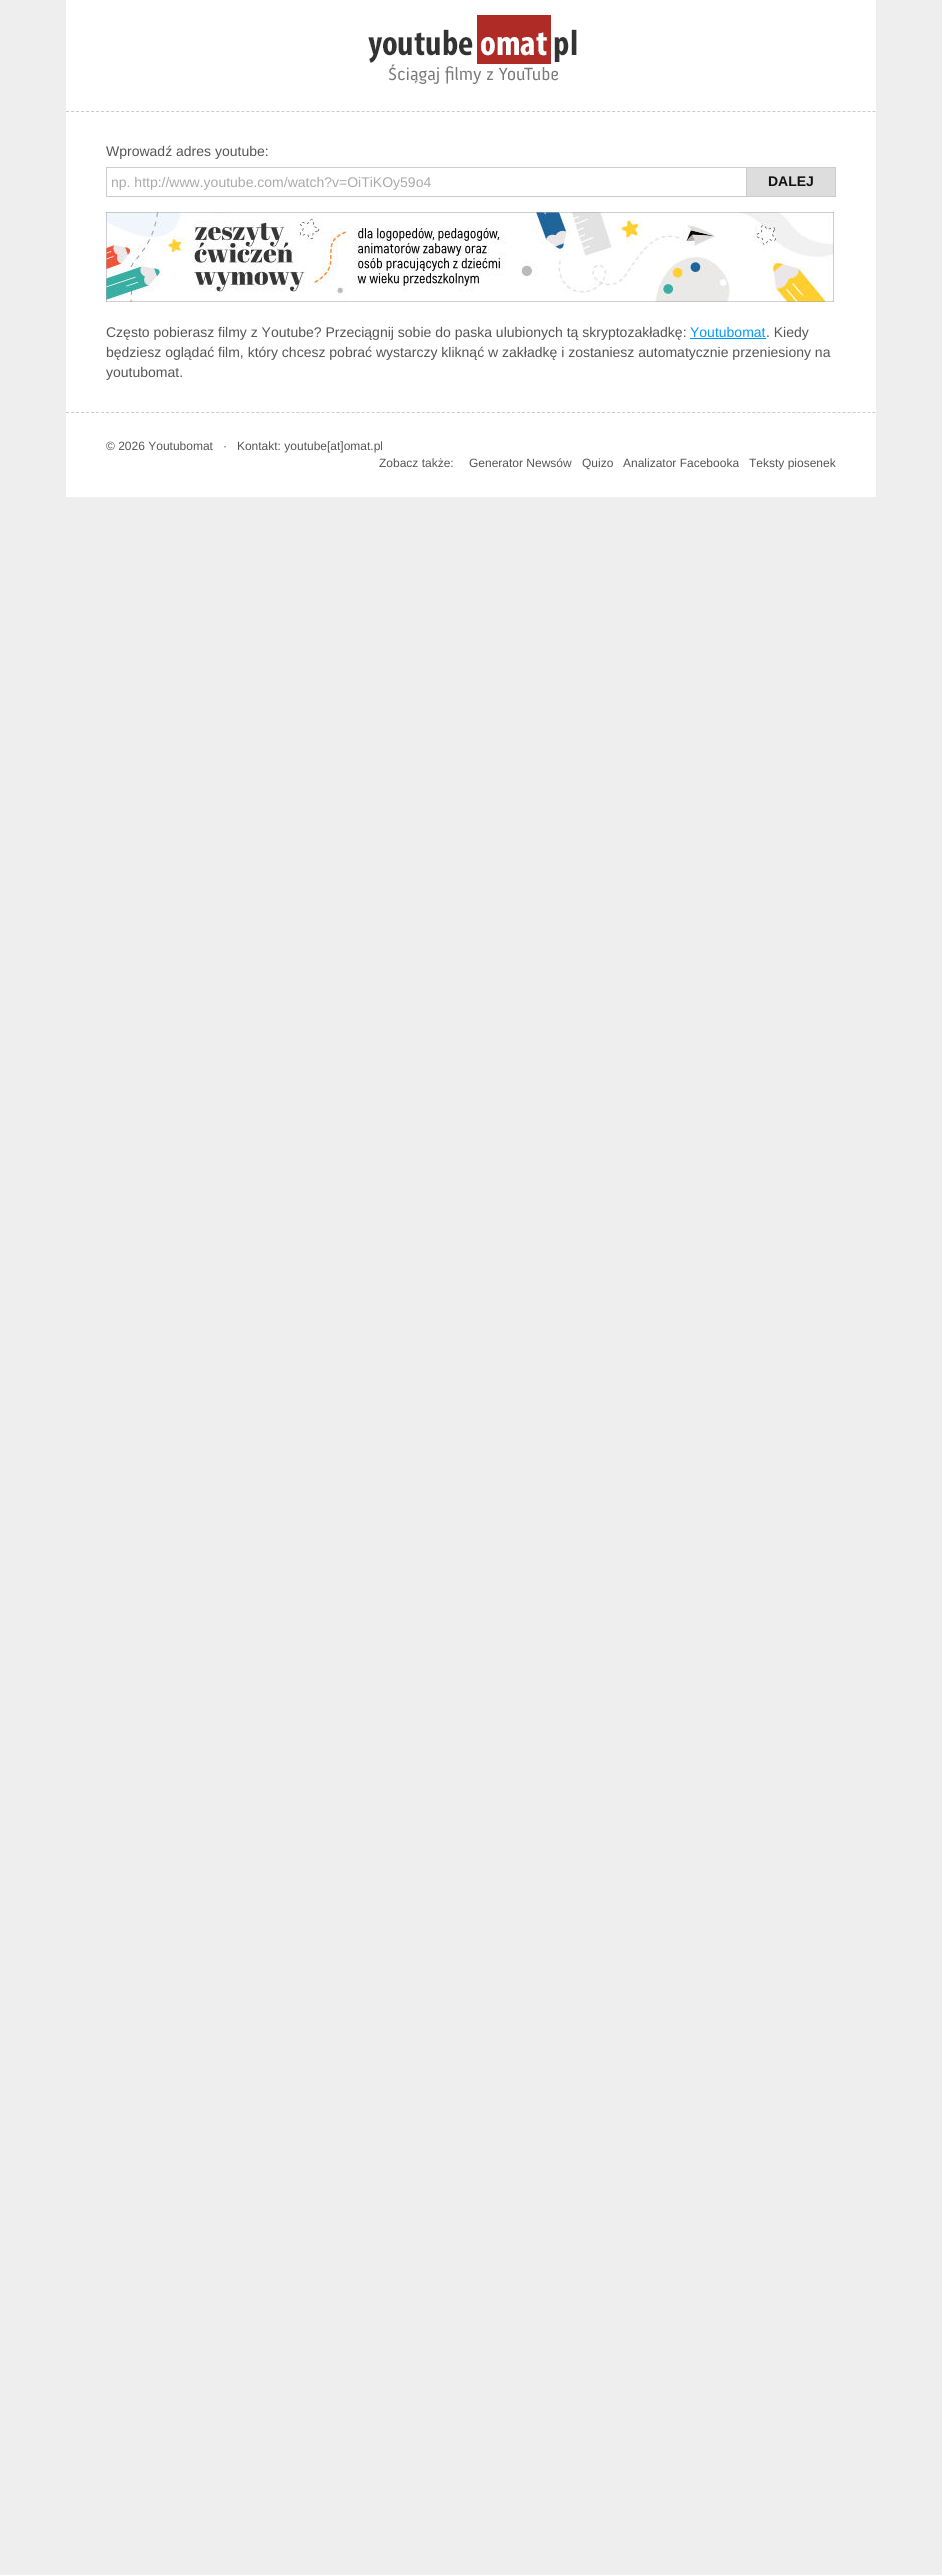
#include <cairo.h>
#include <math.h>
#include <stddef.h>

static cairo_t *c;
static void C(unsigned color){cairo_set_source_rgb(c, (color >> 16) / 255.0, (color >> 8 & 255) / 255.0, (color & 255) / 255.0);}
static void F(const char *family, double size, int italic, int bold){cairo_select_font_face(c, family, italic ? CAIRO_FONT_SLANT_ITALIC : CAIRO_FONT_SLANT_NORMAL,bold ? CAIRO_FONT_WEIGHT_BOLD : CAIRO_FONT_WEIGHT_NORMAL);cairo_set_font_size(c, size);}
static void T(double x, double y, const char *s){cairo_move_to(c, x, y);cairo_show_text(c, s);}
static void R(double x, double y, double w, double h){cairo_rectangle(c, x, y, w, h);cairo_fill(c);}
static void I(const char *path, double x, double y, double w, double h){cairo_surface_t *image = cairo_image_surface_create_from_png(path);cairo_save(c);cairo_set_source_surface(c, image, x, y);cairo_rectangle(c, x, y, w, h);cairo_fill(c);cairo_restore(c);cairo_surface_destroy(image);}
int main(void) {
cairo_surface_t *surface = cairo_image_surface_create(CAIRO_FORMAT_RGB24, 942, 2575);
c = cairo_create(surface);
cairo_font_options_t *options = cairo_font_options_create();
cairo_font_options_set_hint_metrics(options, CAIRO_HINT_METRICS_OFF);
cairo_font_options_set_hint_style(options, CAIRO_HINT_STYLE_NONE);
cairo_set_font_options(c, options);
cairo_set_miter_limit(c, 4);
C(0xeeeeee);
cairo_paint(c);
C(0xffffff);
R(66,0,810,497);
cairo_new_path(c);
cairo_move_to(c,66,111.5);
cairo_line_to(c,876,111.5);
C(0xcccccc);
cairo_set_line_width(c,1);
cairo_set_dash(c,(double[]){3,2.01},2,0);
cairo_stroke(c);
I("1.png",368,15,209,69);
F("Liberation Sans",14,0,0);
C(0x555555);
T(106,156,"Wprowadź adres youtube:");
cairo_rectangle(c,106.5,167.5,729,29);
C(0xcccccc);
cairo_set_dash(c,NULL,0,0);
cairo_stroke(c);
C(0xaaaaaa);
T(111,187,"np. http://www.youtube.com/watch?v=OiTiKOy59o4");
C(0xdddddd);
cairo_rectangle(c,746.5,167.5,89,29);
cairo_fill_preserve(c);
C(0xcccccc);
cairo_stroke(c);
F("Liberation Sans",14,0,1);
C(0x111111);
T(768,186,"DALEJ");
I("2.png",106,212,728,90);
F("Liberation Sans",14,0,0);
C(0x555555);
T(106,337,"Często pobierasz filmy z Youtube? Przeciągnij sobie do paska ulubionych tą skryptozakładkę:");
C(0x0099ff);
T(690,337,"Youtubomat");
R(690,338,76,1);
C(0x555555);
T(766,337,". Kiedy");
T(106,357,"będziesz oglądać film, który chcesz pobrać wystarczy kliknąć w zakładkę i zostaniesz automatycznie przeniesiony na");
T(106,377,"youtubomat.");
cairo_new_path(c);
cairo_move_to(c,66,412.5);
cairo_line_to(c,876,412.5);
C(0xcccccc);
cairo_set_dash(c,(double[]){3,2.01},2,0);
cairo_stroke(c);
F("Liberation Sans",12,0,0);
C(0x555555);
T(106,450,"© 2026 Youtubomat   ·   Kontakt: youtube[at]omat.pl");
T(379,467,"Zobacz także:");
T(469,467,"Generator Newsów");
T(582,467,"Quizo");
T(623,467,"Analizator Facebooka");
T(749,467,"Teksty piosenek");
cairo_surface_write_to_png(surface, "o.png");
cairo_font_options_destroy(options);
cairo_destroy(c);
cairo_surface_destroy(surface);
return 0;
}
